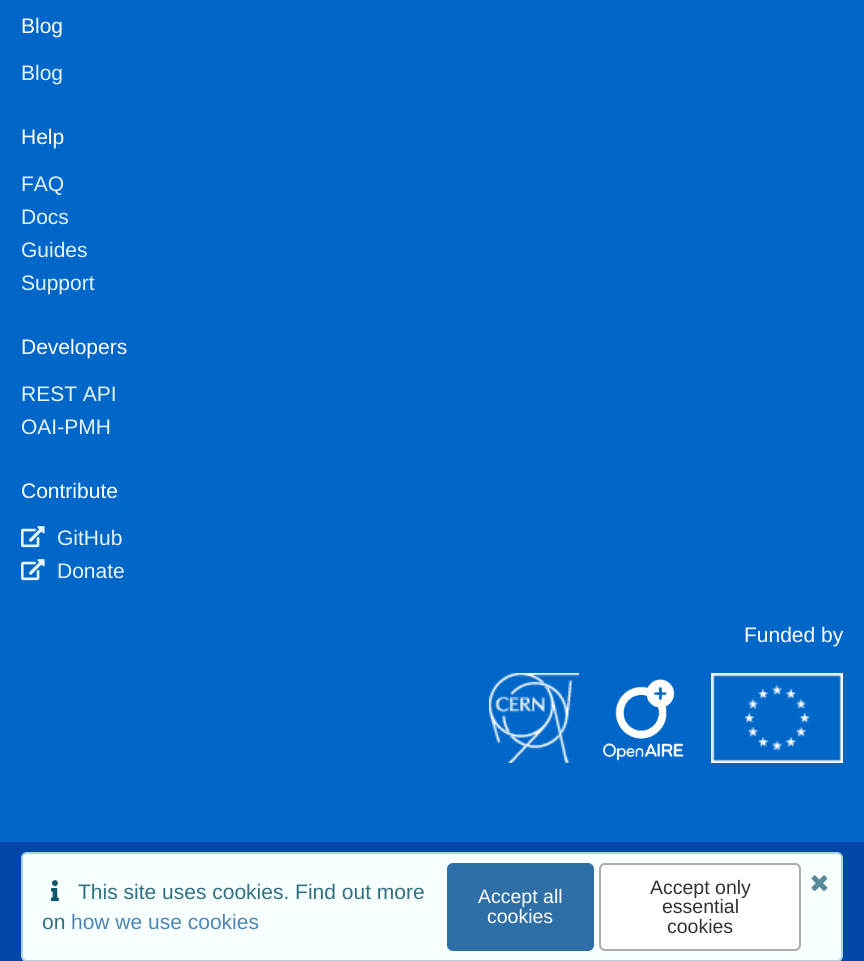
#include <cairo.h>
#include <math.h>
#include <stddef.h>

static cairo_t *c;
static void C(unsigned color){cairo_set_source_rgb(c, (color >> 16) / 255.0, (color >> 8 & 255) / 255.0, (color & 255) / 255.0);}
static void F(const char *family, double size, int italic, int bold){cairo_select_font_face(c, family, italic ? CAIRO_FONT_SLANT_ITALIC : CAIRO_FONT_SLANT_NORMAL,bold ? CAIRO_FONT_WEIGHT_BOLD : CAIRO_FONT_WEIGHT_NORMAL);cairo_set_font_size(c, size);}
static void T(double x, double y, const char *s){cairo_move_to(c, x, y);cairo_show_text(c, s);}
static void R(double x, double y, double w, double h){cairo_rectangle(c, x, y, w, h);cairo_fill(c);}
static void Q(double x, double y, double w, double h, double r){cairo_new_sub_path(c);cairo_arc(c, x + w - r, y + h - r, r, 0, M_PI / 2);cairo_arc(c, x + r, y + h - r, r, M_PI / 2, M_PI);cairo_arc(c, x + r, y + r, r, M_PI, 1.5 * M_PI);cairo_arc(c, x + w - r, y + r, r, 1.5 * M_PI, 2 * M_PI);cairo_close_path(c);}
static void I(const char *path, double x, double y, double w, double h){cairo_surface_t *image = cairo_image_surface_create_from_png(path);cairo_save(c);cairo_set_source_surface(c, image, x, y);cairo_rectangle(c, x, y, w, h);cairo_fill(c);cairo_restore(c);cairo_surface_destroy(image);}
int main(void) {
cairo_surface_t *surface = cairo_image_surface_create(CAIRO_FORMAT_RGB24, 864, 961);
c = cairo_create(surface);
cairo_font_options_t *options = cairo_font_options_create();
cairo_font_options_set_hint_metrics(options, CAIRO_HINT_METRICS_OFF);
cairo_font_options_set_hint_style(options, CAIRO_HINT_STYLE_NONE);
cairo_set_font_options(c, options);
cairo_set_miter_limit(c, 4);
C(0x0067c9);
cairo_paint(c);
F("Liberation Sans",21,0,0);
C(0xffffff);
T(21,33,"Blog");
C(0xe5f4ff);
T(21,80,"Blog");
C(0xffffff);
T(21,144,"Help");
C(0xe5f4ff);
T(21,191,"FAQ");
T(21,224,"Docs");
T(21,257,"Guides");
T(21,290,"Support");
C(0xffffff);
T(21,354,"Developers");
C(0xe5f4ff);
T(21,401,"REST API");
T(21,434,"OAI-PMH");
C(0xffffff);
T(21,498,"Contribute");
I("1.png",21,526,24,22);
C(0xe5f4ff);
T(57,545,"GitHub");
I("1.png",21,559,24,22);
T(57,578,"Donate");
C(0xffffff);
T(744,642,"Funded by");
I("2.png",489,673,90,90);
I("3.png",603,679,81,82);
I("4.png",711,673,132,90);
C(0x0047a8);
R(0,842,864,119);
C(0xf8ffff);
Q(22,853,820,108,5);
cairo_fill_preserve(c);
C(0xa9d5de);
cairo_stroke(c);
I("5.png",51,880,8,22);
C(0x317082);
T(78,899,"This site uses cookies. Find out more");
T(42,929,"on");
C(0x4d85b4);
T(71,929,"how we use cookies");
C(0x2f6fa7);
Q(447,863,147,88,6);
cairo_fill(c);
F("Liberation Sans",19.5,0,0);
C(0xffffff);
T(478,903,"Accept all");
T(487,923,"cookies");
Q(600,864,200,86,5);
cairo_fill_preserve(c);
C(0xadadad);
cairo_stroke(c);
C(0x333333);
T(650,894,"Accept only");
T(662,913,"essential");
T(667,933,"cookies");
I("6.png",811,875,17,16);
cairo_surface_write_to_png(surface, "o.png");
cairo_font_options_destroy(options);
cairo_destroy(c);
cairo_surface_destroy(surface);
return 0;
}
